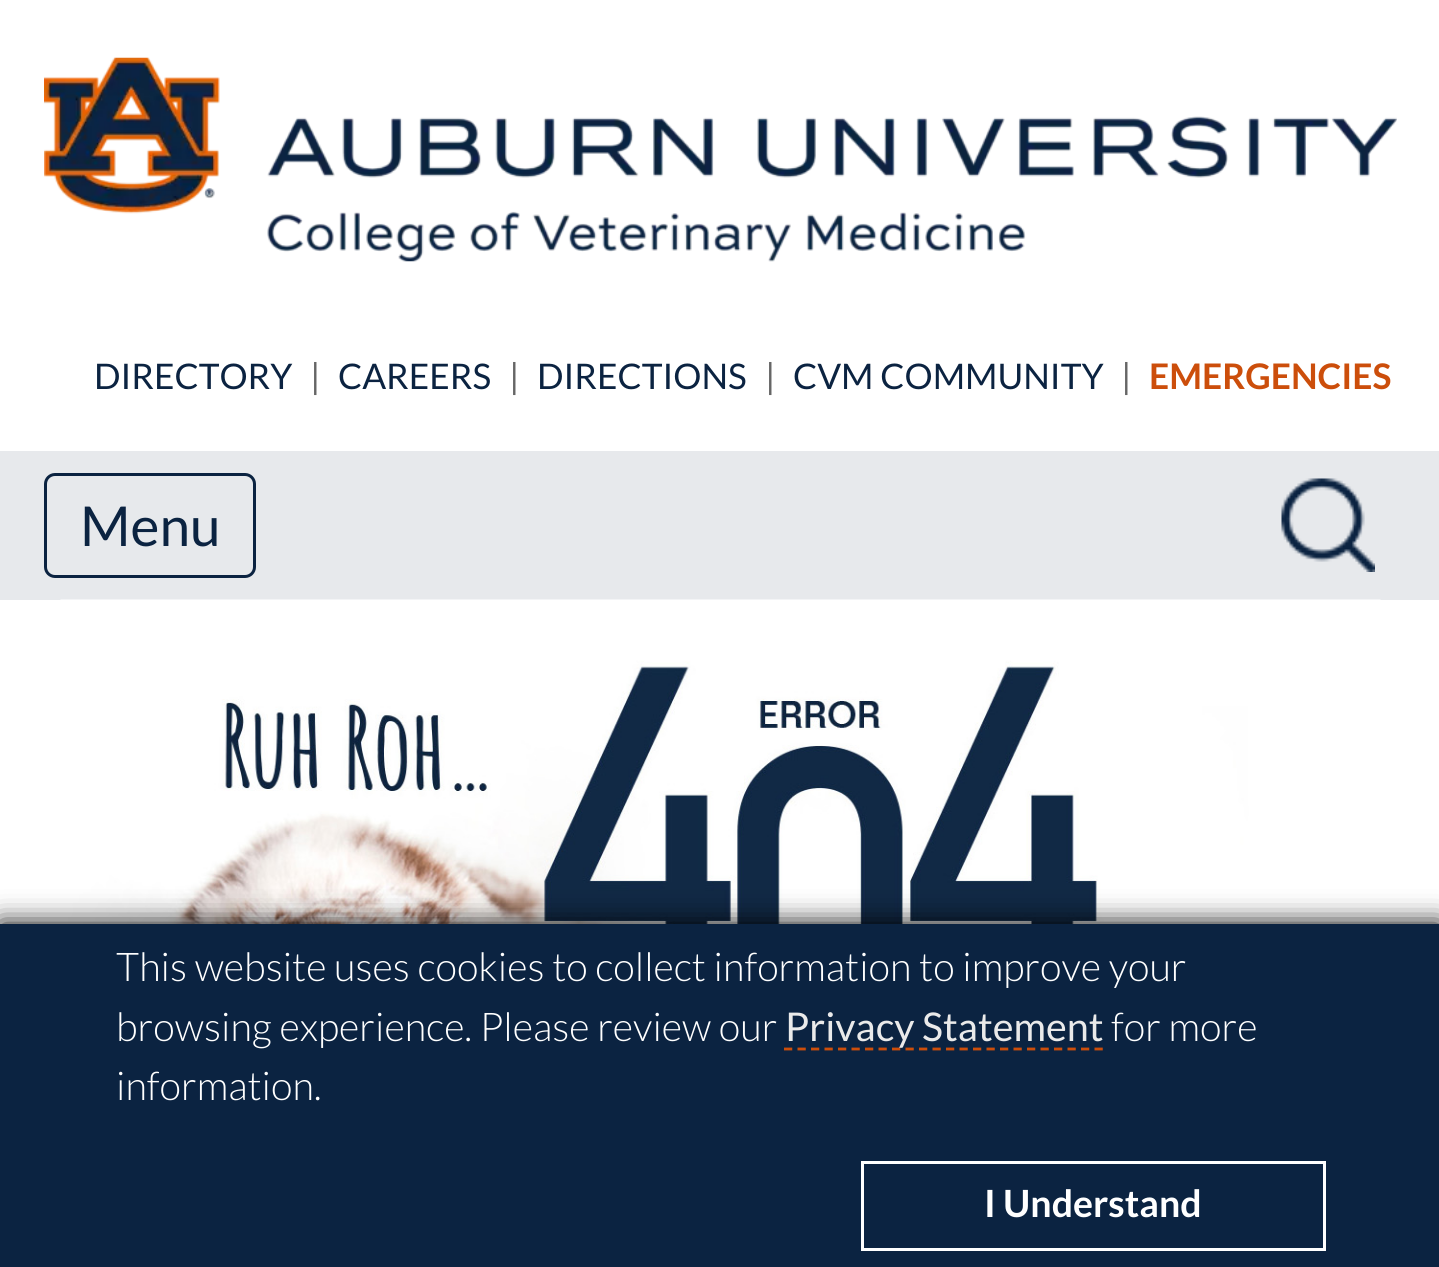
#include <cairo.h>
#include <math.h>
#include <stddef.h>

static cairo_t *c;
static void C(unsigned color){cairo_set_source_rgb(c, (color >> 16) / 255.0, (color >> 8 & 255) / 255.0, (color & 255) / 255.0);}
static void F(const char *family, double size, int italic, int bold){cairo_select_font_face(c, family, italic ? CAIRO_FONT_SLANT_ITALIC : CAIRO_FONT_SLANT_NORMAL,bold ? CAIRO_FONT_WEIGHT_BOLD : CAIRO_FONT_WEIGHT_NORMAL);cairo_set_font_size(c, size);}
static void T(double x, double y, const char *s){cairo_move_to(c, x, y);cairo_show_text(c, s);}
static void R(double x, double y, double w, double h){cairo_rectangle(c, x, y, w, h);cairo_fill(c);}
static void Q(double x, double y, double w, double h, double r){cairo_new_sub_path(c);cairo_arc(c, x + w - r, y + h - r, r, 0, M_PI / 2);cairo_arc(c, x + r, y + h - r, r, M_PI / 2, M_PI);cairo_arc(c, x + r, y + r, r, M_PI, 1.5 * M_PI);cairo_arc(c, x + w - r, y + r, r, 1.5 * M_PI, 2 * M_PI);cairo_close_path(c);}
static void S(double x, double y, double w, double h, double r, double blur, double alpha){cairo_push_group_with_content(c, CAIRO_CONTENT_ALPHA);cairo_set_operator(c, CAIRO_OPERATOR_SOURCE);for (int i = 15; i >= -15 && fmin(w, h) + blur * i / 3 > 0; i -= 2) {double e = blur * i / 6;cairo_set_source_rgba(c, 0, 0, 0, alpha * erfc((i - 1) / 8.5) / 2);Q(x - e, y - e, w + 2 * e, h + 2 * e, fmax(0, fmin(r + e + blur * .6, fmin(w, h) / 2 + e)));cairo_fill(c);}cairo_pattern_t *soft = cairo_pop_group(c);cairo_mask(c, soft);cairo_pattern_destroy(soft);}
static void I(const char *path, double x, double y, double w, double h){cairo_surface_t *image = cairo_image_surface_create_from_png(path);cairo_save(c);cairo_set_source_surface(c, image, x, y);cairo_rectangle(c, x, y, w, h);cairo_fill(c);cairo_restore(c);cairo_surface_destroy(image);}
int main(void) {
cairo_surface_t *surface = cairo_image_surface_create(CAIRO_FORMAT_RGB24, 1439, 1267);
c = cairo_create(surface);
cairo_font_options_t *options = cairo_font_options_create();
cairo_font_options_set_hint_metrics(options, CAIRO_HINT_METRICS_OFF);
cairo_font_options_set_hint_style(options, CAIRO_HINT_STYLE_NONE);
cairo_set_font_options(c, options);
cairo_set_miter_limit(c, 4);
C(0xffffff);
cairo_paint(c);
I("1.png",44,57,1353,205);
F("Lato",35.25,0,0);
C(0x0b2341);
T(94,389,"DIRECTORY");
C(0x666666);
T(310,389,"|");
C(0x0b2341);
T(338,389,"CAREERS");
C(0x666666);
T(509,389,"|");
C(0x0b2341);
T(537,389,"DIRECTIONS");
C(0x666666);
T(765,389,"|");
C(0x0b2341);
T(793,389,"CVM COMMUNITY");
C(0x666666);
T(1121,389,"|");
F("Lato",35.25,0,1);
C(0xcc4e0b);
T(1149,389,"EMERGENCIES");
C(0xe7e9ec);
R(0,451,1439,149);
Q(45.5,474.5,209,102,9.5);
C(0x0b2341);
cairo_set_line_width(c,3);
cairo_stroke(c);
F("Lato",55,0,0);
T(80,546,"Menu");
I("2.png",1281,478,94,94);
I("3.png",60,599,1321,325);
C(0x000000);
S(0,924,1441,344,0,14,1);
C(0x0b2341);
R(0,924,1439,343);
F("Lato Light",39.6,0,0);
C(0xffffff);
T(116,981,"This website uses cookies to collect information to improve your");
T(116,1041,"browsing experience. Please review our");
cairo_new_path(c);
cairo_move_to(c,784,1049);
cairo_line_to(c,1103,1049);
C(0xcc4e0b);
cairo_set_line_width(c,2.8);
cairo_set_dash(c,(double[]){8.25,5.25},2,0);
cairo_stroke(c);
F("Lato",39.6,0,0);
C(0xeaeaea);
T(785,1041,"Privacy Statement");
F("Lato Light",39.6,0,0);
C(0xffffff);
T(1111,1041,"for more");
T(116,1100,"information.");
cairo_rectangle(c,862.5,1162.5,462,87);
cairo_set_line_width(c,3);
cairo_set_dash(c,NULL,0,0);
cairo_stroke(c);
F("Lato",37.5,0,1);
T(984,1217,"I Understand");
cairo_surface_write_to_png(surface, "o.png");
cairo_font_options_destroy(options);
cairo_destroy(c);
cairo_surface_destroy(surface);
return 0;
}
